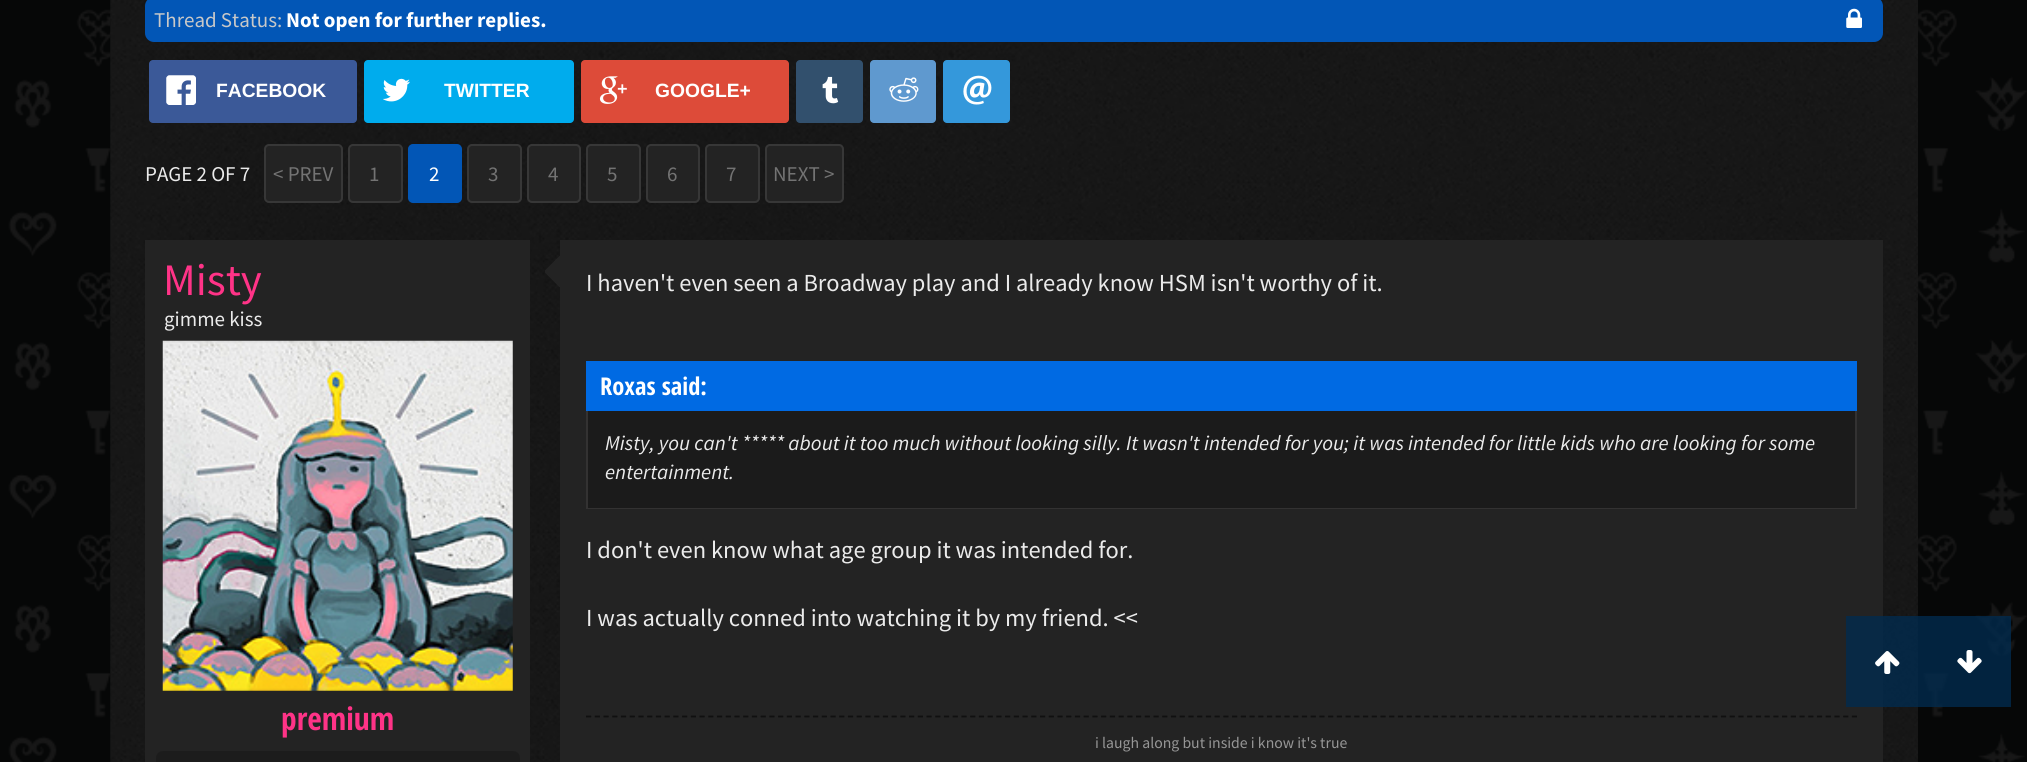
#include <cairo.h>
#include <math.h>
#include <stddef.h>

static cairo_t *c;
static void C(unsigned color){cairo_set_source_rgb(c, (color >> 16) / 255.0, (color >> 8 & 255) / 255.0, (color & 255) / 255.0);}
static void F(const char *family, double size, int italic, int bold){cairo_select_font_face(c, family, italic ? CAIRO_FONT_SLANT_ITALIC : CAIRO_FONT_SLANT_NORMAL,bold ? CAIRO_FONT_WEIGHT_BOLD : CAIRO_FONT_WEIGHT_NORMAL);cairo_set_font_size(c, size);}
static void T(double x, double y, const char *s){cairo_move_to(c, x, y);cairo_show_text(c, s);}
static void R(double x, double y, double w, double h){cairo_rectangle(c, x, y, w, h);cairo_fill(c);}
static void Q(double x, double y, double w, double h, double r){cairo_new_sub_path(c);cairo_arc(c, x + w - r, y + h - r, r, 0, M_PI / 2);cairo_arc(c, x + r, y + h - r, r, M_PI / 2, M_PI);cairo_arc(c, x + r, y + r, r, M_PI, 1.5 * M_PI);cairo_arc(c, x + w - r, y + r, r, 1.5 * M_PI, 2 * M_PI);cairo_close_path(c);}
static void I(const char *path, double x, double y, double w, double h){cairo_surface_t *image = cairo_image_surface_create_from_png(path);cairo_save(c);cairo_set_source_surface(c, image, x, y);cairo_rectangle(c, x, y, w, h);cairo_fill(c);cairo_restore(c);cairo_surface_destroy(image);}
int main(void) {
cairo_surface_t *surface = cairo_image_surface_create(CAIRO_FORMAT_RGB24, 2027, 762);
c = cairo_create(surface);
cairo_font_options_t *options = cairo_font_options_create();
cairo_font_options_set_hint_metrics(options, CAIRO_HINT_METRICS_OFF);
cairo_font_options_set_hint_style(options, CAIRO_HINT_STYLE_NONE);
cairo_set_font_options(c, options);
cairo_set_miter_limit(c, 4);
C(0xffffff);
cairo_paint(c);
I("1.png",0,0,2027,762);
I("2.png",110,0,1808,762);
C(0x0256b6);
Q(145,-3,1738,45,9);
cairo_fill(c);
F("Source Sans Pro",21,0,0);
C(0xc8c8c8);
T(154,27,"Thread Status:");
F("Source Sans Pro",21,0,1);
C(0xffffff);
T(286,27,"Not open for further replies.");
I("3.png",1846,8,16,20);
C(0x3b5998);
Q(149,60,208,63,4);
cairo_fill(c);
I("4.png",166,75,30,30);
F("Liberation Sans",19.25,0,1);
C(0xffffff);
T(216,97,"FACEBOOK");
C(0x00aced);
Q(364,60,210,63,4);
cairo_fill(c);
I("5.png",383,78,27,24);
C(0xffffff);
T(444,97,"TWITTER");
C(0xdd4b39);
Q(581,60,208,63,4);
cairo_fill(c);
I("6.png",599,76,28,28);
C(0xffffff);
T(655,97,"GOOGLE+");
C(0x32506d);
Q(796,60,67,63,4);
cairo_fill(c);
I("7.png",822,76,17,28);
C(0x5f99cf);
Q(870,60,66,63,4);
cairo_fill(c);
I("8.png",889,77,30,25);
C(0x3498db);
Q(943,60,67,63,4);
cairo_fill(c);
I("9.png",963,75,29,30);
F("Source Sans Pro",21,0,0);
C(0xebebeb);
T(145,181,"PAGE 2 OF 7");
C(0x232323);
Q(265,145,77,57,4);
cairo_fill_preserve(c);
C(0x373737);
cairo_stroke(c);
C(0x737373);
T(273,181,"< PREV");
C(0x232323);
Q(349,145,53,57,4);
cairo_fill_preserve(c);
C(0x373737);
cairo_stroke(c);
C(0x737373);
T(369,181,"1");
C(0x0256b6);
Q(409,145,52,57,4);
cairo_fill_preserve(c);
cairo_stroke(c);
C(0xffffff);
T(429,181,"2");
C(0x232323);
Q(468,145,53,57,4);
cairo_fill_preserve(c);
C(0x373737);
cairo_stroke(c);
C(0x737373);
T(488,181,"3");
C(0x232323);
Q(528,145,52,57,4);
cairo_fill_preserve(c);
C(0x373737);
cairo_stroke(c);
C(0x737373);
T(548,181,"4");
C(0x232323);
Q(587,145,53,57,4);
cairo_fill_preserve(c);
C(0x373737);
cairo_stroke(c);
C(0x737373);
T(607,181,"5");
C(0x232323);
Q(647,145,52,57,4);
cairo_fill_preserve(c);
C(0x373737);
cairo_stroke(c);
C(0x737373);
T(667,181,"6");
C(0x232323);
Q(706,145,53,57,4);
cairo_fill_preserve(c);
C(0x373737);
cairo_stroke(c);
C(0x737373);
T(726,181,"7");
C(0x232323);
Q(766,145,77,57,4);
cairo_fill_preserve(c);
C(0x373737);
cairo_stroke(c);
C(0x737373);
T(773,181,"NEXT >");
C(0x232323);
R(145,240,385,522);
F("Source Sans Pro",45,0,0);
C(0xff3387);
T(163,295,"Misty");
F("Source Sans Pro",21,0,0);
C(0xebebeb);
T(164,326,"gimme kiss");
I("10.png",162,340,351,351);
F("Open Sans Condensed",31.5,0,1);
C(0xff3387);
T(281,730,"premium");
C(0x1c1c1c);
Q(156,751,364,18,7);
cairo_fill(c);
C(0x232323);
R(560,240,1323,522);
I("11.png",545,256,15,31);
F("Source Sans Pro",24.5,0,0);
C(0xebebeb);
T(586,291,"I haven't even seen a Broadway play and I already know HSM isn't worthy of it.");
C(0x006ae3);
R(586,361,1271,50);
F("Open Sans Condensed",24.5,0,1);
C(0xffffff);
T(600,395,"Roxas said:");
C(0x1b1b1b);
R(588,411,1267,97);
C(0x333232);
R(1855,411,2,98);
R(586,508,1271,1);
R(586,411,2,98);
F("Source Sans Pro",21,1,0);
C(0xebebeb);
T(605,450,"Misty, you can't ***** about it too much without looking silly. It wasn't intended for you; it was intended for little kids who are looking for some");
T(605,479,"entertainment.");
F("Source Sans Pro",24.5,0,0);
T(586,558,"I don't even know what age group it was intended for.");
T(586,626,"I was actually conned into watching it by my friend. <<");
cairo_new_path(c);
cairo_move_to(c,586,716.5);
cairo_line_to(c,1857,716.5);
C(0x101010);
cairo_set_line_width(c,1.8);
cairo_set_dash(c,(double[]){5.25,3.48},2,0);
cairo_stroke(c);
F("Source Sans Pro",15.75,0,0);
C(0x969696);
T(1095,748,"i laugh along but inside i know it's true");
cairo_set_source_rgba(c,0.008,0.169,0.306,0.8);
R(1846,616,83,91);
I("12.png",1875,651,25,23);
R(1929,616,82,91);
I("13.png",1957,650,25,24);
cairo_surface_write_to_png(surface, "o.png");
cairo_font_options_destroy(options);
cairo_destroy(c);
cairo_surface_destroy(surface);
return 0;
}
